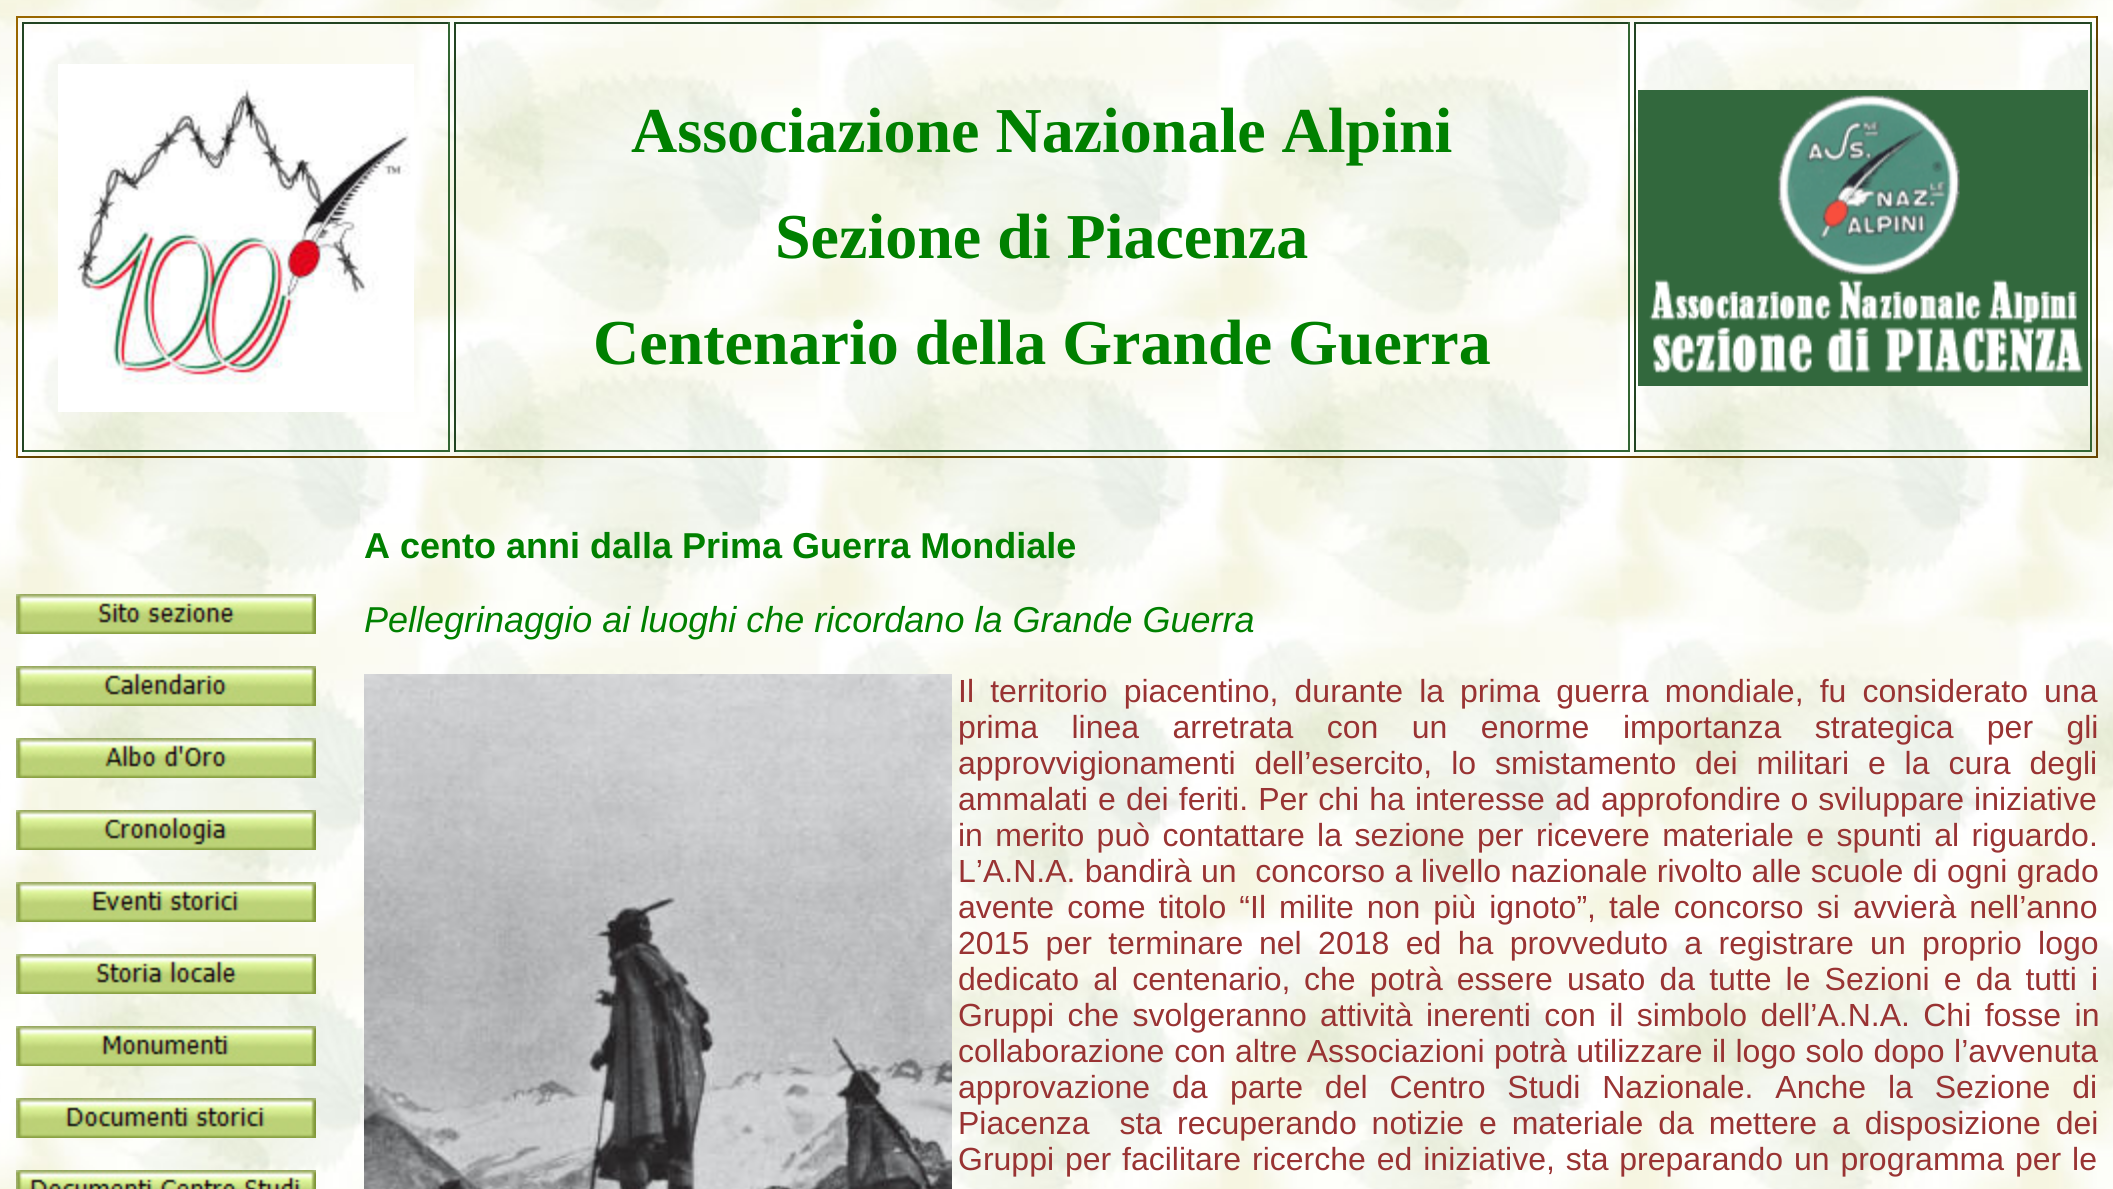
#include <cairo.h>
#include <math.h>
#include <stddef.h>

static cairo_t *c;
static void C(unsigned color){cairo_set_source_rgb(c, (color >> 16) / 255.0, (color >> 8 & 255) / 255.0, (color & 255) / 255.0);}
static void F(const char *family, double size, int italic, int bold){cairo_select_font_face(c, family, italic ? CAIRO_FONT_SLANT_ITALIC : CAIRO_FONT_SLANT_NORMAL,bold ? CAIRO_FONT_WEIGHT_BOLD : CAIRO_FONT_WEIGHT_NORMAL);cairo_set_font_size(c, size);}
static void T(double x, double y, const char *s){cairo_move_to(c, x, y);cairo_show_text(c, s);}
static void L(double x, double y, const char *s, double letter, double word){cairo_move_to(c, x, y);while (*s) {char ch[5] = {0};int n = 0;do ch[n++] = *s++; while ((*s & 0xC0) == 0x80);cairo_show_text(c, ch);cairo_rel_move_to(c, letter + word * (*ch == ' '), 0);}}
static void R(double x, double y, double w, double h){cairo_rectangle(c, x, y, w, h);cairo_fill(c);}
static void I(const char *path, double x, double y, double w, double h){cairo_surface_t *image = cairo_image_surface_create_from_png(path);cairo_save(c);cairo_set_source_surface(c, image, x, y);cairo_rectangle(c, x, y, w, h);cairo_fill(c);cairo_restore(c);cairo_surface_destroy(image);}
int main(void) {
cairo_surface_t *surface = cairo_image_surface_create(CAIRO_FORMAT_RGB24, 2113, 1189);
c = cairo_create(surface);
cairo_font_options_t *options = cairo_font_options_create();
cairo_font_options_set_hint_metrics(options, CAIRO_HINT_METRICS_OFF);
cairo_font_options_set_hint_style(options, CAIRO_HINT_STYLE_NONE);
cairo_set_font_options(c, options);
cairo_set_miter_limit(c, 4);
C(0xffffff);
cairo_paint(c);
I("1.png",0,0,2113,1189);
C(0x996600);
R(16,16,2082,2);
C(0x664400);
R(2096,16,2,442);
R(16,456,2082,2);
C(0x996600);
R(16,16,2,442);
C(0x224422);
R(22,22,428,2);
C(0x336633);
R(448,22,2,430);
R(22,450,428,2);
C(0x224422);
R(22,22,2,430);
I("2.png",58,64,356,348);
R(454,22,1176,2);
C(0x336633);
R(1628,22,2,430);
R(454,450,1176,2);
C(0x224422);
R(454,22,2,430);
F("Liberation Serif",64,0,1);
C(0x008000);
T(631,152,"Associazione Nazionale Alpini");
T(775,258,"Sezione di Piacenza");
T(593,364,"Centenario della Grande Guerra");
C(0x224422);
R(1634,22,458,2);
C(0x336633);
R(2090,22,2,430);
R(1634,450,458,2);
C(0x224422);
R(1634,22,2,430);
I("3.png",1638,90,450,296);
I("4.png",16,594,300,40);
I("5.png",16,666,300,40);
I("6.png",16,738,300,40);
I("7.png",16,810,300,40);
I("8.png",16,882,300,40);
I("9.png",16,954,300,40);
I("10.png",16,1026,300,40);
I("11.png",16,1098,300,40);
I("12.png",16,1170,300,19);
F("Liberation Sans",36,0,1);
C(0x008000);
T(364,558,"A cento anni dalla Prima Guerra Mondiale");
F("Liberation Sans",36,1,0);
T(364,632,"Pellegrinaggio ai luoghi che ricordano la Grande Guerra");
I("13.png",364,674,588,515);
F("Liberation Sans",32,0,0);
C(0x993333);
L(958,702,"Il territorio piacentino, durante la",0,7.25);
L(1460,702,"prima guerra mondiale, fu considerato una",0,7.25);
L(958,738,"prima linea arretrata con un enorme",0,24.5);
L(1623,738,"importanza strategica per gli",0,24.5);
L(958,774,"approvvigionamenti dell’esercito, lo smistamento",0,10);
L(1695,774,"dei militari e la cura degli",0,10);
L(958,810,"ammalati e dei feriti. Per chi ha interesse ad",0,1.25);
L(1601,810,"approfondire o sviluppare iniziative",0,1);
L(958,846,"in merito può contattare la sezione per",0,3.5);
L(1536,846,"ricevere materiale e spunti al riguardo.",0,3.5);
L(958,882,"L’A.N.A. bandirà un  concorso a",0,.5);
L(1421,882,"livello nazionale rivolto alle scuole di ogni grado",0,.5);
L(958,918,"avente come titolo “Il",0,4.25);
L(1279,918,"milite non più ignoto”, tale concorso si avvierà nell’anno",0,4.25);
L(958,954,"2015 per terminare",0,7.5);
L(1259,954,"nel 2018 ed ha provveduto a registrare un proprio logo",0,7.5);
L(958,990,"dedicato al centenario,",0,5.25);
L(1304,990,"che potrà essere usato da tutte le Sezioni e da tutti i",0,5.25);
L(958,1026,"Gruppi che svolgeranno",0,4.5);
L(1320,1026,"attività inerenti con il simbolo dell’A.N.A. Chi fosse in",0,4.5);
L(958,1062,"collaborazione con",0,1);
L(1235,1062,"altre Associazioni potrà utilizzare il logo solo dopo l’avvenuta",0,.5);
L(958,1098,"approvazione da",0,13);
L(1230,1098,"parte del Centro Studi Nazionale. Anche la Sezione di",0,13);
L(958,1134,"Piacenza  sta",0,6);
L(1177,1134,"recuperando notizie e materiale da mettere a disposizione dei",0,6);
L(958,1170,"Gruppi per",0,2);
L(1122,1170,"facilitare ricerche ed iniziative, sta preparando un programma per le",0,2);
cairo_surface_write_to_png(surface, "o.png");
cairo_font_options_destroy(options);
cairo_destroy(c);
cairo_surface_destroy(surface);
return 0;
}
